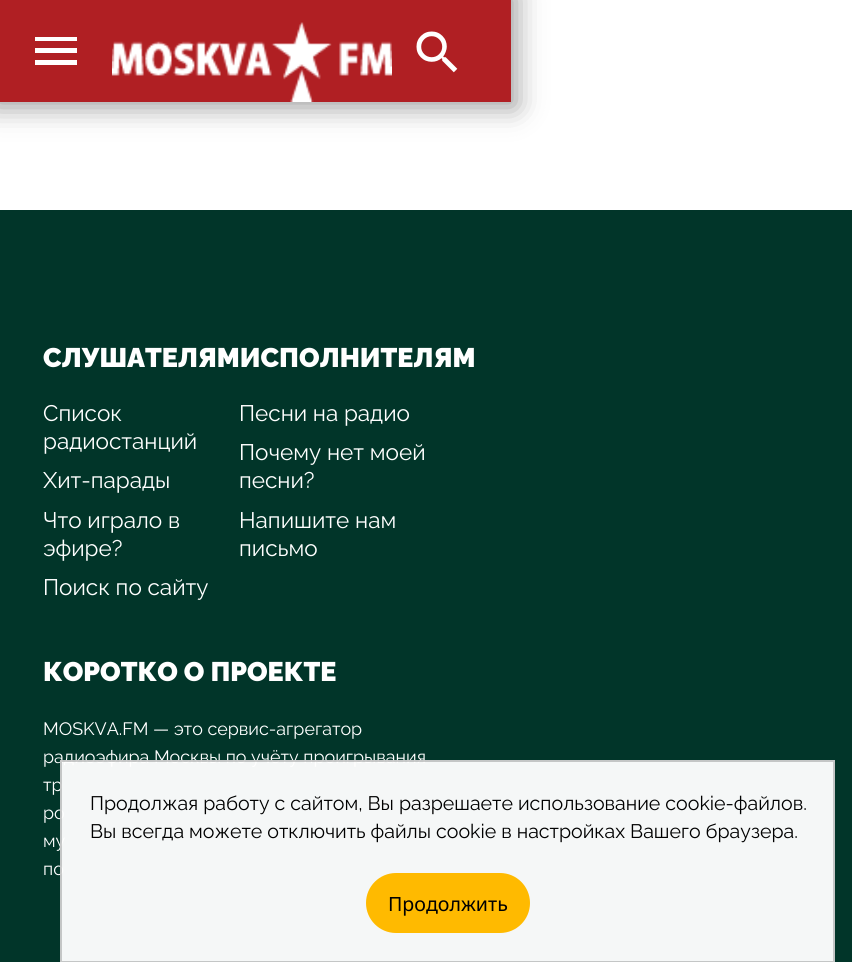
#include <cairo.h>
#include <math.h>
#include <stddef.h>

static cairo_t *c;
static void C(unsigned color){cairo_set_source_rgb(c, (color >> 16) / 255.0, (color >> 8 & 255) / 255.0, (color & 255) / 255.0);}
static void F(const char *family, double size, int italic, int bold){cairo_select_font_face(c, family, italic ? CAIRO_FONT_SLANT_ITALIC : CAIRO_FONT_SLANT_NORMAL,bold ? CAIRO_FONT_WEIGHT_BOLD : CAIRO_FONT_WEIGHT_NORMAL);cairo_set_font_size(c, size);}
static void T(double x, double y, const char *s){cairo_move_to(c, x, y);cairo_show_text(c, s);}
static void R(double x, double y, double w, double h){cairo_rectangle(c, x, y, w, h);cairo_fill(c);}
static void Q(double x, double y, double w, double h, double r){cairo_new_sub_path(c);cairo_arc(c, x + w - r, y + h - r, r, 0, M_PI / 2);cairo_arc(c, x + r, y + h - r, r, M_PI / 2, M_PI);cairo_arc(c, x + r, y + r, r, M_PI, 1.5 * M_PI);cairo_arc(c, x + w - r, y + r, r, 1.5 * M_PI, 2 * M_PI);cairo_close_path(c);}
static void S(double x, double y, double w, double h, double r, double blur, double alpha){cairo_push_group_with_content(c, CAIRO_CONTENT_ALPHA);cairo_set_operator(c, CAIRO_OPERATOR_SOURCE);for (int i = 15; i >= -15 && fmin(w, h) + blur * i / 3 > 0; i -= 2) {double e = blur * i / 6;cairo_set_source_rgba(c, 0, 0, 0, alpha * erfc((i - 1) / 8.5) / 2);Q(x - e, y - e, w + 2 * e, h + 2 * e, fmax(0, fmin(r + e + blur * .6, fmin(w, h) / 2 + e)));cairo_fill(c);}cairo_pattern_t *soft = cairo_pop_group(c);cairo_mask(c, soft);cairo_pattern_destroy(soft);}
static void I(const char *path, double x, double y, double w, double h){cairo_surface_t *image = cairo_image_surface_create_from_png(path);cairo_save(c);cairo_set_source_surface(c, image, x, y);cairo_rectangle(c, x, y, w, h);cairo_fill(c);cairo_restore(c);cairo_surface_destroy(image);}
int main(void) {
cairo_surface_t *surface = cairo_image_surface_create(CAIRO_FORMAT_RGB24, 852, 962);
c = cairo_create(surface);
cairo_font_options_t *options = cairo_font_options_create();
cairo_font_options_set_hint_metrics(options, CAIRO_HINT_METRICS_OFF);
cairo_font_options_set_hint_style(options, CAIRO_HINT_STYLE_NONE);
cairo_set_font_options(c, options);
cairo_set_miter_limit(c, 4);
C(0x013529);
cairo_paint(c);
C(0xffffff);
R(0,0,852,210);
C(0x000000);
S(-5,-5,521,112,0,14,.4);
C(0xb01f23);
R(0,0,511,102);
C(0xffffff);
cairo_new_path(c);
cairo_move_to(c,35,37);
cairo_line_to(c,77,37);
cairo_line_to(c,77,41);
cairo_line_to(c,35,41);
cairo_close_path(c);
cairo_move_to(c,35,53);
cairo_line_to(c,35,48);
cairo_line_to(c,77,48);
cairo_line_to(c,77,53);
cairo_close_path(c);
cairo_move_to(c,35,65);
cairo_line_to(c,35,60);
cairo_line_to(c,77,60);
cairo_line_to(c,77,65);
cairo_close_path(c);
cairo_fill(c);
I("1.png",112,22,280,80);
I("2.png",416,31,42,42);
F("Raleway Black",26.9,0,0);
T(43,367,"СЛУШАТЕЛЯМИСПОЛНИТЕЛЯМ");
F("Raleway",22.5,0,0);
T(43,421,"Список");
T(43,449,"радиостанций");
T(43,488,"Хит-парады");
T(43,528,"Что играло в");
T(43,556,"эфире?");
T(43,595,"Поиск по сайту");
T(239,421,"Песни на радио");
T(239,460,"Почему нет моей");
T(239,488,"песни?");
T(239,528,"Напишите нам");
T(239,556,"письмо");
F("Raleway Black",26.9,0,0);
T(43,681,"КОРОТКО О ПРОЕКТЕ");
F("Raleway",17.9,0,0);
T(43,735,"MOSKVA.FM — это сервис-агрегатор");
T(43,763,"радиоэфира Москвы по учёту проигрывания");
T(43,791,"тр");
T(43,819,"ро");
T(43,847,"му");
T(43,875,"по");
cairo_set_source_rgba(c,1,1,1,0.96);
R(60,760,775,202);
cairo_rectangle(c,61,761,773,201);
cairo_set_source_rgba(c,0,0,0,0.2);
cairo_stroke(c);
F("Raleway",19.6,0,0);
C(0x000000);
T(90,810,"Продолжая работу с сайтом, Вы разрешаете использование cookie-файлов.");
T(90,838,"Вы всегда можете отключить файлы cookie в настройках Вашего браузера.");
C(0xffba00);
Q(366,873,164,60,30);
cairo_fill(c);
F("Noto Sans",19.6,0,0);
C(0x000000);
T(388,911,"Продолжить");
cairo_surface_write_to_png(surface, "o.png");
cairo_font_options_destroy(options);
cairo_destroy(c);
cairo_surface_destroy(surface);
return 0;
}
